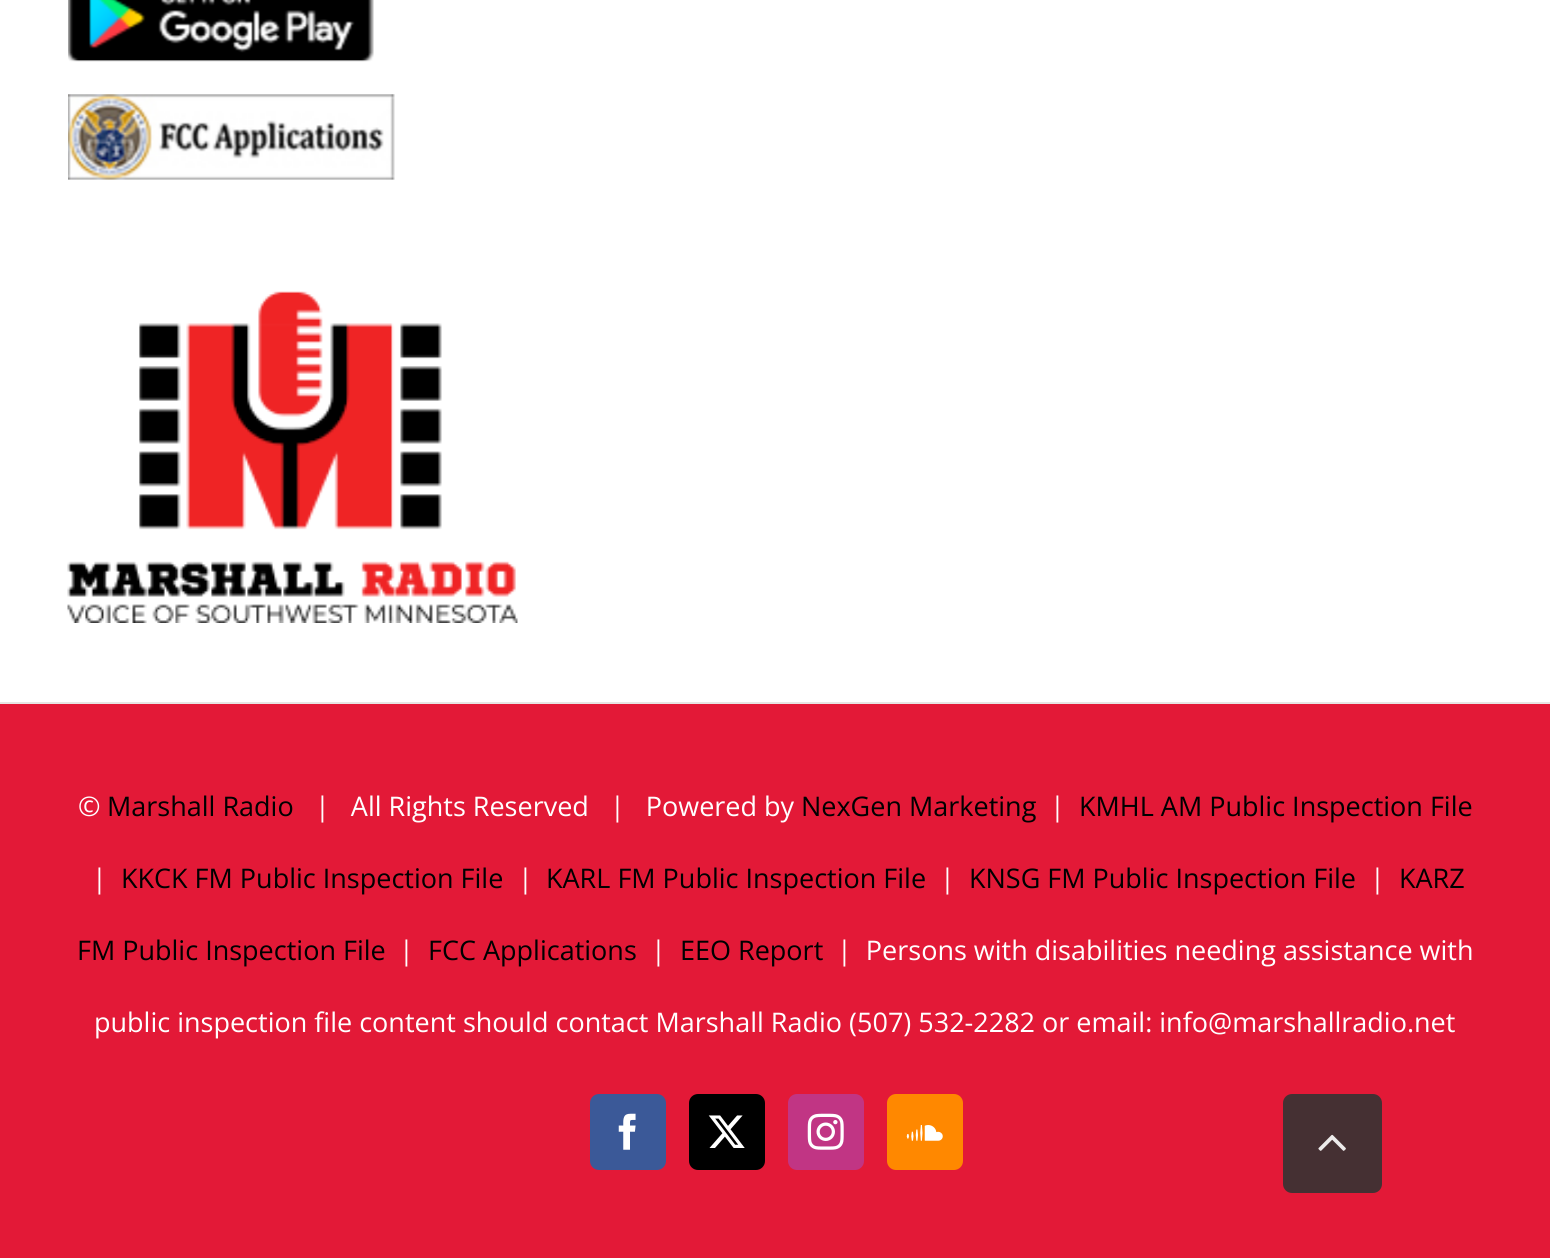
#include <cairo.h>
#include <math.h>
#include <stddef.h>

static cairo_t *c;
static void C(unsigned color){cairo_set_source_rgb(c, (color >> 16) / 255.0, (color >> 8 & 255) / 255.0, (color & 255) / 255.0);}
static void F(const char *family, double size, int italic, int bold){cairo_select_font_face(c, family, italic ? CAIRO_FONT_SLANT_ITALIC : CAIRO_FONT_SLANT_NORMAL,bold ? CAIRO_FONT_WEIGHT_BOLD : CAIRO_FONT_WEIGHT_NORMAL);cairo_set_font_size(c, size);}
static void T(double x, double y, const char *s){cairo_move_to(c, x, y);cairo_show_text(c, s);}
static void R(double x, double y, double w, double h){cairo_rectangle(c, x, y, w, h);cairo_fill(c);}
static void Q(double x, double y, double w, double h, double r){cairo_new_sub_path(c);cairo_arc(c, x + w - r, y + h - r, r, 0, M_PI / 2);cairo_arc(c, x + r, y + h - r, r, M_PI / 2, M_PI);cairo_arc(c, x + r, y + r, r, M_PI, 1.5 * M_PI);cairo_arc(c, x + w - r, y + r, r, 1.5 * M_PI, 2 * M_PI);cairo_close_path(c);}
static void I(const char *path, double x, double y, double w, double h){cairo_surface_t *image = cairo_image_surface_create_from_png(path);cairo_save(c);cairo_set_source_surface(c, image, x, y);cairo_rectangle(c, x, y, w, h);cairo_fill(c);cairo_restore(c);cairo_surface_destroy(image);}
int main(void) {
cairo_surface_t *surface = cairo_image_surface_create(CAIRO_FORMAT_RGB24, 1550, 1258);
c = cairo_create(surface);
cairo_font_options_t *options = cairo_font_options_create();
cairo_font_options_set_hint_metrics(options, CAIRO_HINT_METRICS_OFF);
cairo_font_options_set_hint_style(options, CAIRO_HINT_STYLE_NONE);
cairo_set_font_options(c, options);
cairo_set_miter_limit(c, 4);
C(0xffffff);
cairo_paint(c);
I("1.png",68,0,306,62);
I("2.png",68,94,327,86);
I("3.png",67,291,451,332);
C(0xe31937);
R(0,704,1550,554);
C(0xe7e4e2);
R(0,702,1550,2);
F("Open Sans",27,0,0);
C(0xffffff);
T(78,816,"©");
C(0x000000);
T(107,816,"Marshall Radio");
C(0xffffff);
T(315,816,"|   All Rights Reserved   |   Powered by");
C(0x000000);
T(801,816,"NexGen Marketing");
C(0xffffff);
T(1050,816,"|");
C(0x000000);
T(1079,816,"KMHL AM Public Inspection File");
C(0xffffff);
T(92,888,"|");
C(0x000000);
T(121,888,"KKCK FM Public Inspection File");
C(0xffffff);
T(518,888,"|");
C(0x000000);
T(546,888,"KARL FM Public Inspection File");
C(0xffffff);
T(940,888,"|");
C(0x000000);
T(969,888,"KNSG FM Public Inspection File");
C(0xffffff);
T(1370,888,"|");
C(0x000000);
T(1399,888,"KARZ");
T(77,960,"FM Public Inspection File");
C(0xffffff);
T(399,960,"|");
C(0x000000);
T(428,960,"FCC Applications");
C(0xffffff);
T(651,960,"|");
C(0x000000);
T(680,960,"EEO Report");
C(0xffffff);
T(837,960,"|  Persons with disabilities needing assistance with");
T(94,1032,"public inspection file content should contact Marshall Radio (507) 532-2282 or email: info@marshallradio.net");
C(0x3b5998);
Q(591,1095,74,74,8);
cairo_fill_preserve(c);
cairo_stroke(c);
I("4.png",618,1113,18,37);
C(0x000000);
Q(690,1095,74,74,8);
cairo_fill_preserve(c);
cairo_stroke(c);
I("5.png",708,1115,37,33);
C(0xc13584);
Q(789,1095,74,74,8);
cairo_fill_preserve(c);
cairo_stroke(c);
I("6.png",807,1113,37,37);
C(0xff8800);
Q(888,1095,74,74,8);
cairo_fill_preserve(c);
cairo_stroke(c);
I("7.png",906,1125,37,16);
C(0x453033);
Q(1283,1094,99,99,9);
cairo_fill(c);
I("8.png",1318,1134,28,17);
cairo_surface_write_to_png(surface, "o.png");
cairo_font_options_destroy(options);
cairo_destroy(c);
cairo_surface_destroy(surface);
return 0;
}
